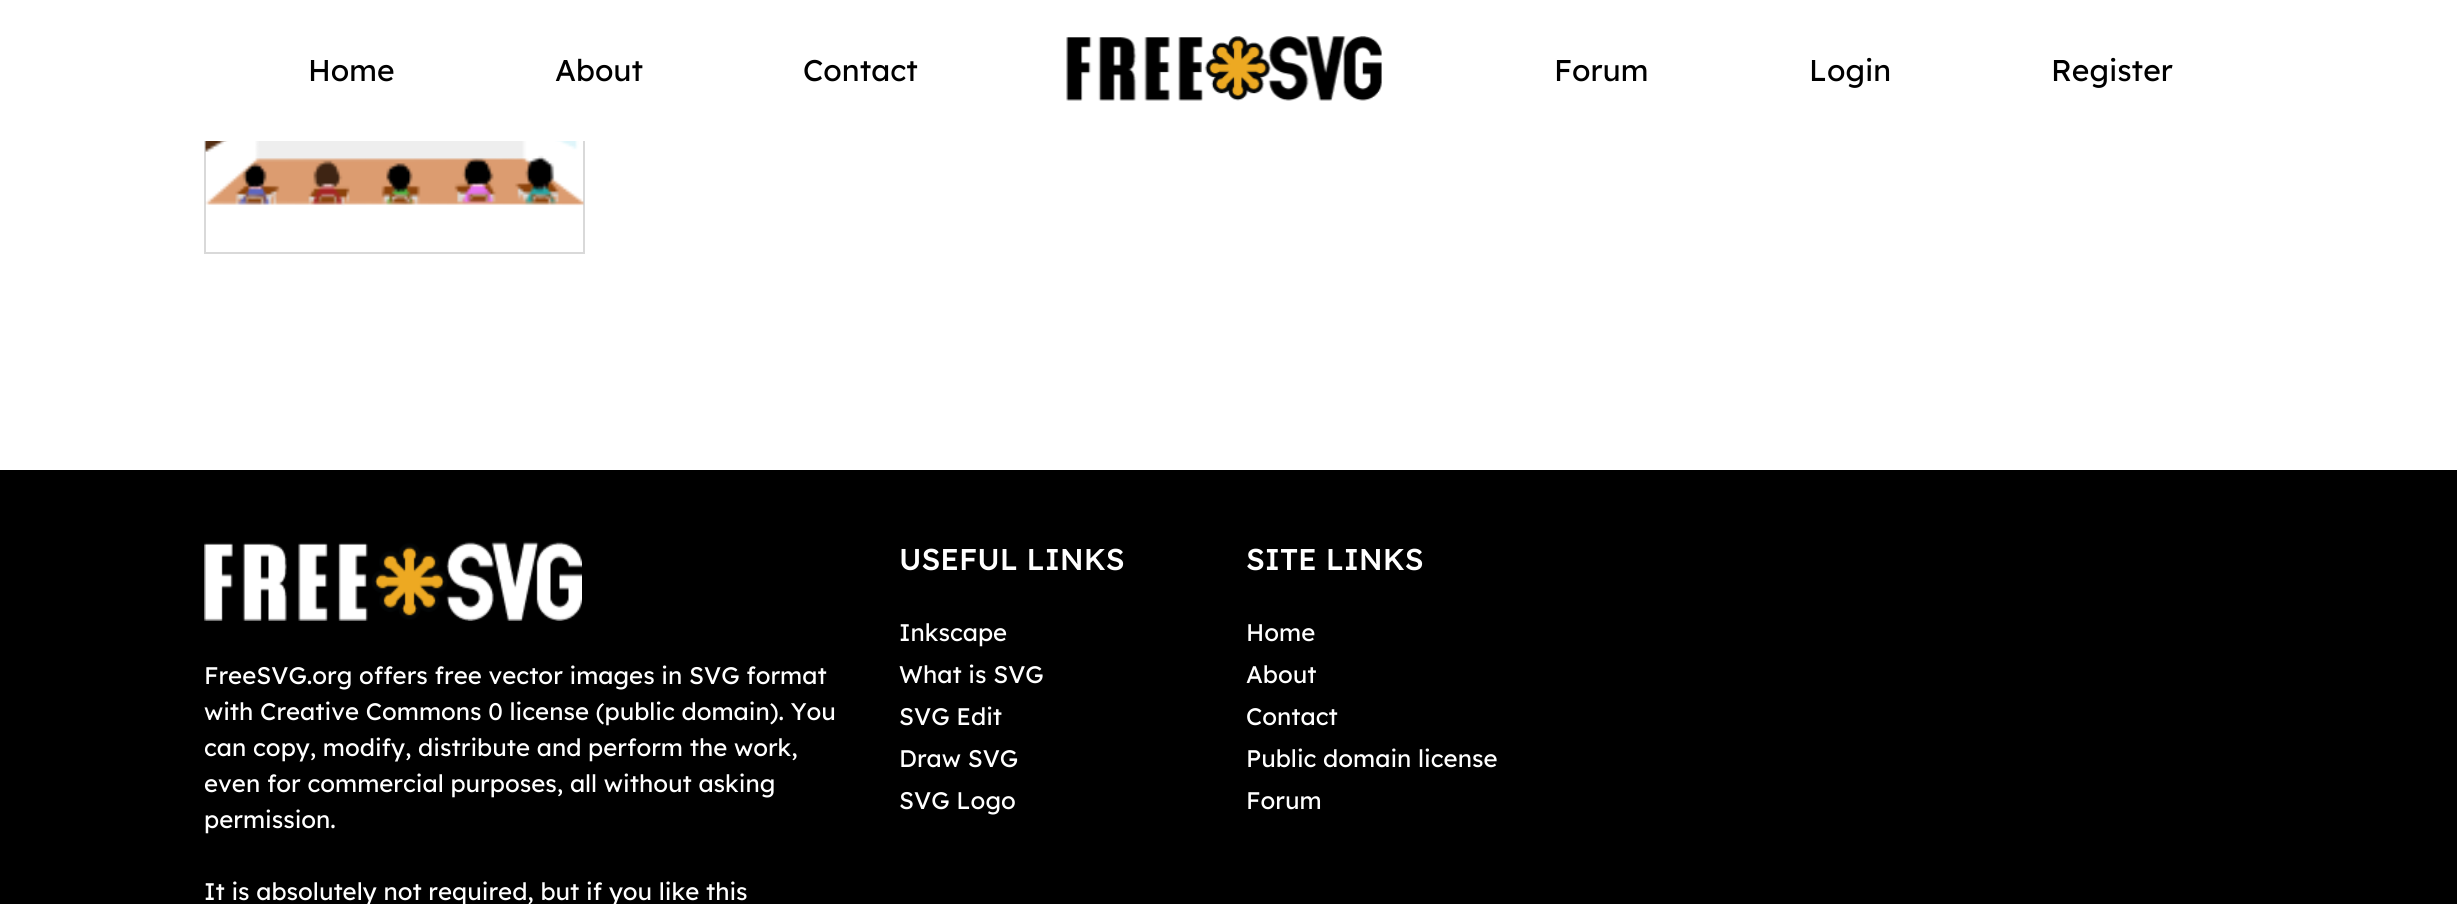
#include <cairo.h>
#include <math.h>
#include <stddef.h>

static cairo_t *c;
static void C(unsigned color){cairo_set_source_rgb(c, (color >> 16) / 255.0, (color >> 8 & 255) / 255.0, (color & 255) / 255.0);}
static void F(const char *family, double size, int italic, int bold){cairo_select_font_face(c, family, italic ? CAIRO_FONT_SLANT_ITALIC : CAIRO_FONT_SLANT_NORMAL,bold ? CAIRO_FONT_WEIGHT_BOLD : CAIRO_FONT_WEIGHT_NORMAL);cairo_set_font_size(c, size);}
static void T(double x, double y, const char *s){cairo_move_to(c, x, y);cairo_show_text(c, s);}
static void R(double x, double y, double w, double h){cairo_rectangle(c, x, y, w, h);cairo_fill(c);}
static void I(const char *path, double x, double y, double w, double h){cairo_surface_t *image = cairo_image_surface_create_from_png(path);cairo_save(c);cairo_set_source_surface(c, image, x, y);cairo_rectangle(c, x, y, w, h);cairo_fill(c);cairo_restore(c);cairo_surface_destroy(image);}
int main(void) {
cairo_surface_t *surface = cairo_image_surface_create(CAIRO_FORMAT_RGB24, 2457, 904);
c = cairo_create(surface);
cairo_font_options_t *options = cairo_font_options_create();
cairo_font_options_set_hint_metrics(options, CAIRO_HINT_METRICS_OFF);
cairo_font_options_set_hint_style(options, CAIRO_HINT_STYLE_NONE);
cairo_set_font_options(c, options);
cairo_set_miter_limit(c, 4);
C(0xffffff);
cairo_paint(c);
cairo_rectangle(c,205,-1,379,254);
C(0xd9d9d9);
cairo_stroke(c);
I("1.png",205,141,379,65);
C(0xffffff);
R(204,0,381,141);
F("Lexend",30,0,0);
C(0x000000);
T(308,81,"Home");
T(555,81,"About");
T(803,81,"Contact");
I("2.png",1066,36,316,65);
T(1554,81,"Forum");
T(1809,81,"Login");
T(2051,81,"Register");
R(0,470,2457,434);
I("3.png",204,541,378,80);
F("Lexend",24,0,0);
C(0xffffff);
T(204,684,"FreeSVG.org offers free vector images in SVG format");
T(204,720,"with Creative Commons 0 license (public domain). You");
T(204,756,"can copy, modify, distribute and perform the work,");
T(204,792,"even for commercial purposes, all without asking");
T(204,828,"permission.");
T(204,900,"It is absolutely not required, but if you like this");
F("Lexend Medium",30,0,0);
T(899,570,"USEFUL LINKS");
F("Lexend",24,0,0);
T(899,641,"Inkscape");
T(899,683,"What is SVG");
T(899,725,"SVG Edit");
T(899,767,"Draw SVG");
T(899,809,"SVG Logo");
F("Lexend Medium",30,0,0);
T(1246,570,"SITE LINKS");
F("Lexend",24,0,0);
T(1246,641,"Home");
T(1246,683,"About");
T(1246,725,"Contact");
T(1246,767,"Public domain license");
T(1246,809,"Forum");
cairo_surface_write_to_png(surface, "o.png");
cairo_font_options_destroy(options);
cairo_destroy(c);
cairo_surface_destroy(surface);
return 0;
}
